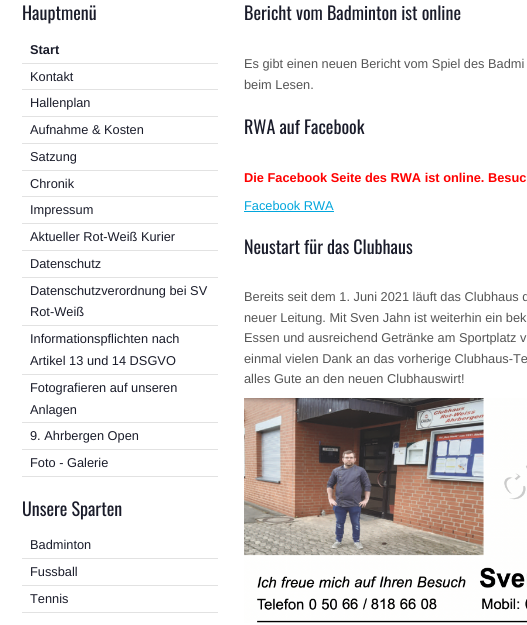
#include <cairo.h>
#include <math.h>
#include <stddef.h>

static cairo_t *c;
static void C(unsigned color){cairo_set_source_rgb(c, (color >> 16) / 255.0, (color >> 8 & 255) / 255.0, (color & 255) / 255.0);}
static void F(const char *family, double size, int italic, int bold){cairo_select_font_face(c, family, italic ? CAIRO_FONT_SLANT_ITALIC : CAIRO_FONT_SLANT_NORMAL,bold ? CAIRO_FONT_WEIGHT_BOLD : CAIRO_FONT_WEIGHT_NORMAL);cairo_set_font_size(c, size);}
static void T(double x, double y, const char *s){cairo_move_to(c, x, y);cairo_show_text(c, s);}
static void R(double x, double y, double w, double h){cairo_rectangle(c, x, y, w, h);cairo_fill(c);}
static void I(const char *path, double x, double y, double w, double h){cairo_surface_t *image = cairo_image_surface_create_from_png(path);cairo_save(c);cairo_set_source_surface(c, image, x, y);cairo_rectangle(c, x, y, w, h);cairo_fill(c);cairo_restore(c);cairo_surface_destroy(image);}
int main(void) {
cairo_surface_t *surface = cairo_image_surface_create(CAIRO_FORMAT_RGB24, 527, 625);
c = cairo_create(surface);
cairo_font_options_t *options = cairo_font_options_create();
cairo_font_options_set_hint_metrics(options, CAIRO_HINT_METRICS_OFF);
cairo_font_options_set_hint_style(options, CAIRO_HINT_STYLE_NONE);
cairo_set_font_options(c, options);
cairo_set_miter_limit(c, 4);
C(0xffffff);
cairo_paint(c);
F("Oswald",18,0,0);
C(0x1a1c2a);
T(22,20,"Hauptmenü");
C(0xe2e2e2);
R(22,63,196,1);
F("Liberation Sans",12.8,0,1);
C(0x1a1c2a);
T(30,54,"Start");
C(0xe2e2e2);
R(22,89,196,1);
F("Liberation Sans",12.8,0,0);
C(0x1a1c2a);
T(30,81,"Kontakt");
C(0xe2e2e2);
R(22,116,196,1);
C(0x1a1c2a);
T(30,107,"Hallenplan");
C(0xe2e2e2);
R(22,143,196,1);
C(0x1a1c2a);
T(30,134,"Aufnahme & Kosten");
C(0xe2e2e2);
R(22,170,196,1);
C(0x1a1c2a);
T(30,161,"Satzung");
C(0xe2e2e2);
R(22,196,196,1);
C(0x1a1c2a);
T(30,188,"Chronik");
C(0xe2e2e2);
R(22,223,196,1);
C(0x1a1c2a);
T(30,214,"Impressum");
C(0xe2e2e2);
R(22,250,196,1);
C(0x1a1c2a);
T(30,241,"Aktueller Rot-Weiß Kurier");
C(0xe2e2e2);
R(22,277,196,1);
C(0x1a1c2a);
T(30,268,"Datenschutz");
C(0xe2e2e2);
R(22,325,196,1);
C(0x1a1c2a);
T(30,295,"Datenschutzverordnung bei SV");
T(30,316,"Rot-Weiß");
C(0xe2e2e2);
R(22,374,196,1);
C(0x1a1c2a);
T(30,343,"Informationspflichten nach");
T(30,365,"Artikel 13 und 14 DSGVO");
C(0xe2e2e2);
R(22,422,196,1);
C(0x1a1c2a);
T(30,392,"Fotografieren auf unseren");
T(30,414,"Anlagen");
C(0xe2e2e2);
R(22,449,196,1);
C(0x1a1c2a);
T(30,440,"9. Ahrbergen Open");
C(0xe2e2e2);
R(22,476,196,1);
C(0x1a1c2a);
T(30,467,"Foto - Galerie");
F("Oswald",18,0,0);
T(22,516,"Unsere Sparten");
C(0xe2e2e2);
R(22,558,196,1);
F("Liberation Sans",12.8,0,0);
C(0x1a1c2a);
T(30,549,"Badminton");
C(0xe2e2e2);
R(22,585,196,1);
C(0x1a1c2a);
T(30,576,"Fussball");
C(0xe2e2e2);
R(22,612,196,1);
C(0x1a1c2a);
T(30,603,"Tennis");
F("Oswald",18,0,0);
T(244,20,"Bericht vom Badminton ist online");
F("Liberation Sans",12.8,0,0);
C(0x555555);
T(244,68,"Es gibt einen neuen Bericht vom Spiel des Badmi");
T(244,89,"beim Lesen.");
F("Oswald",18,0,0);
C(0x1a1c2a);
T(244,134,"RWA auf Facebook");
F("Liberation Sans",12.8,0,1);
C(0xff0000);
T(244,182,"Die Facebook Seite des RWA ist online. Besuc");
F("Liberation Sans",12.8,0,0);
C(0x02a6dc);
T(244,210,"Facebook RWA");
R(244,211,90,1);
F("Oswald",18,0,0);
C(0x1a1c2a);
T(244,254,"Neustart für das Clubhaus");
F("Liberation Sans",12.8,0,0);
C(0x555555);
T(244,301,"Bereits seit dem 1. Juni 2021 läuft das Clubhaus d");
T(244,322,"neuer Leitung. Mit Sven Jahn ist weiterhin ein bek");
T(244,342,"Essen und ausreichend Getränke am Sportplatz v");
T(244,363,"einmal vielen Dank an das vorherige Clubhaus-Te");
T(244,383,"alles Gute an den neuen Clubhauswirt!");
I("1.png",244,398,283,225);
cairo_surface_write_to_png(surface, "o.png");
cairo_font_options_destroy(options);
cairo_destroy(c);
cairo_surface_destroy(surface);
return 0;
}
